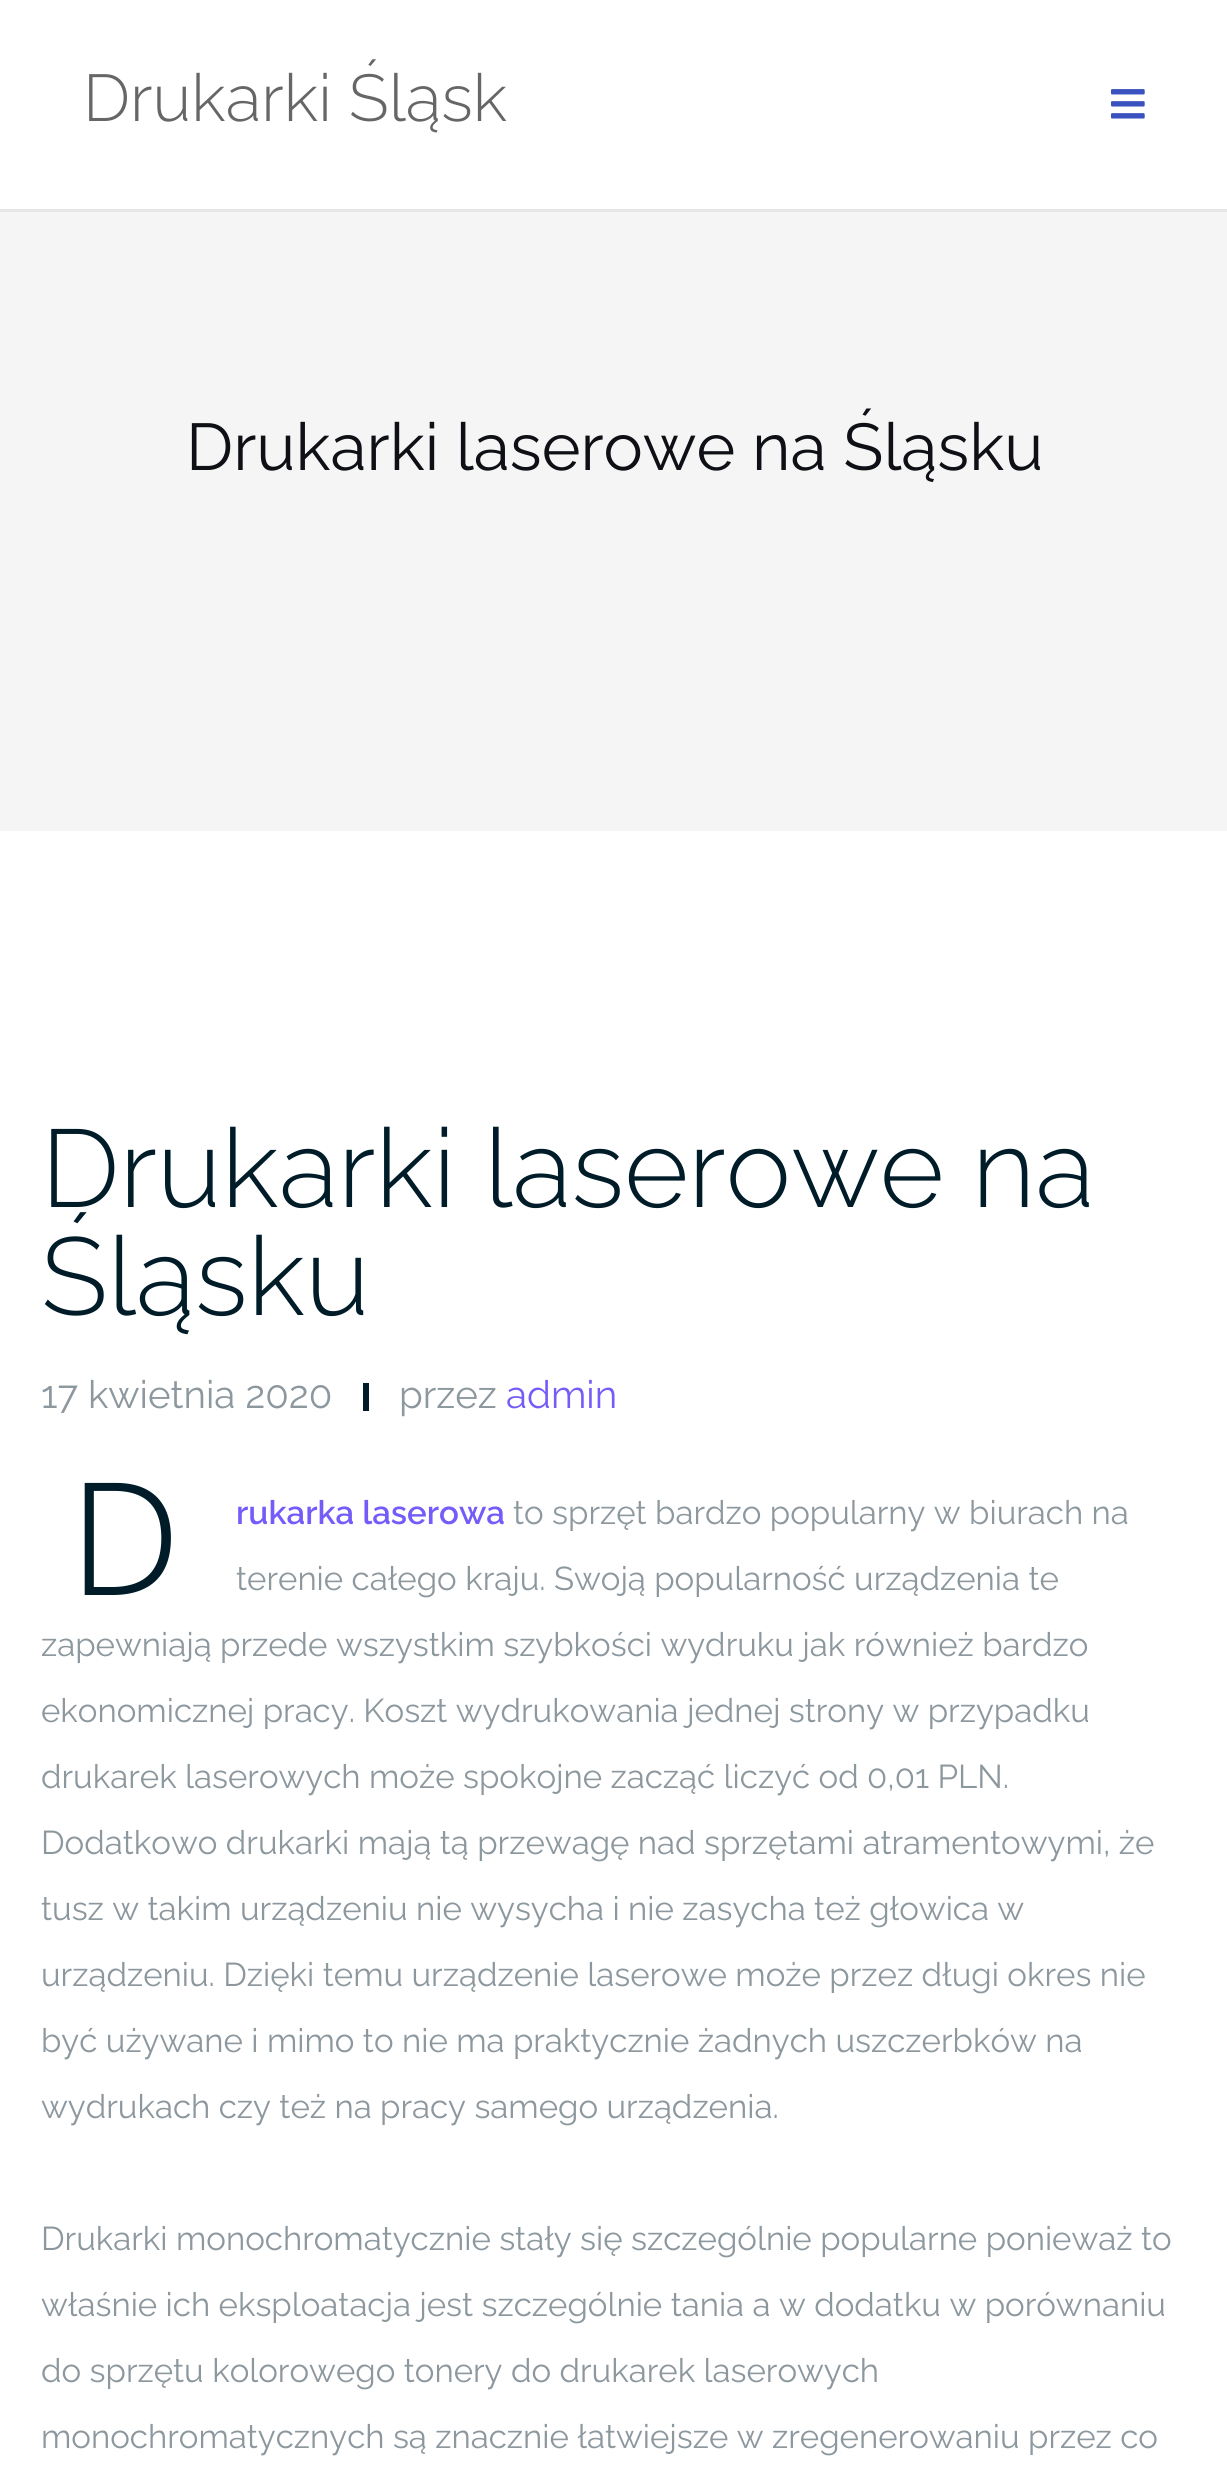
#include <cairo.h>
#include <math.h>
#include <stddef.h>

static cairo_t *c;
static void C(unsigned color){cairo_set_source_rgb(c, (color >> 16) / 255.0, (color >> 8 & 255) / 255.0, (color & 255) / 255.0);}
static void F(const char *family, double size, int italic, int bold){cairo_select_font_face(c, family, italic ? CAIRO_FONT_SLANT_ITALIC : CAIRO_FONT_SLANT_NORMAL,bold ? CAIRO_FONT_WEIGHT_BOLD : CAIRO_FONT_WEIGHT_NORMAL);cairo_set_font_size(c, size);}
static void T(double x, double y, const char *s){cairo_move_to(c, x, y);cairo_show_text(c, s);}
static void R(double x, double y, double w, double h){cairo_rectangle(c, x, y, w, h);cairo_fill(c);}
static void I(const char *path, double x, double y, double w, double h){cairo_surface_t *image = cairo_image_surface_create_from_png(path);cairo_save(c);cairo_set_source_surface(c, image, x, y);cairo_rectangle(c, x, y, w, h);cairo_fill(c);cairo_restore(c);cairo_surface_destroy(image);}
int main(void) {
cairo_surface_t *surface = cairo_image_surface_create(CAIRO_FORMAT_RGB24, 1227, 2485);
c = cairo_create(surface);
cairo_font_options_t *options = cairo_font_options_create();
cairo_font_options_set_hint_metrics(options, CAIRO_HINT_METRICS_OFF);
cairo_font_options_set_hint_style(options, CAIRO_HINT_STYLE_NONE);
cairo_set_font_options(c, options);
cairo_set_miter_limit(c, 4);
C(0xffffff);
cairo_paint(c);
C(0xe6e6e6);
R(0,209,1227,3);
F("Raleway Light",66,0,0);
C(0x666666);
T(83,121,"Drukarki Śląsk");
I("1.png",1111,89,34,30);
C(0xf5f5f5);
R(0,212,1227,619);
F("Raleway",66,0,0);
C(0x0e1015);
T(186,470,"Drukarki laserowe na Śląsku");
F("Raleway Light",110,0,0);
C(0x001c28);
T(41,1207,"Drukarki laserowe na");
T(41,1315,"Śląsku");
F("Raleway",38.5,0,0);
C(0x8c979e);
T(41,1408,"17 kwietnia 2020");
C(0x001c28);
R(363,1383,6,28);
C(0x8c979e);
T(399,1408,"przez");
C(0x745cf9);
T(506,1408,"admin");
F("Noto Sans Light",157,0,0);
C(0x001c28);
T(69,1595,"D");
F("Raleway SemiBold",33,0,0);
C(0x745cf9);
T(236,1524,"rukarka laserowa");
F("Raleway",33,0,0);
C(0x8c979e);
T(513,1524,"to sprzęt bardzo popularny w biurach na");
T(236,1590,"terenie całego kraju. Swoją popularność urządzenia te");
T(41,1656,"zapewniają przede wszystkim szybkości wydruku jak również bardzo");
T(41,1722,"ekonomicznej pracy. Koszt wydrukowania jednej strony w przypadku");
T(41,1788,"drukarek laserowych może spokojne zacząć liczyć od 0,01 PLN.");
T(41,1854,"Dodatkowo drukarki mają tą przewagę nad sprzętami atramentowymi, że");
T(41,1920,"tusz w takim urządzeniu nie wysycha i nie zasycha też głowica w");
T(41,1986,"urządzeniu. Dzięki temu urządzenie laserowe może przez długi okres nie");
T(41,2052,"być używane i mimo to nie ma praktycznie żadnych uszczerbków na");
T(41,2118,"wydrukach czy też na pracy samego urządzenia.");
T(41,2250,"Drukarki monochromatycznie stały się szczególnie popularne ponieważ to");
T(41,2316,"właśnie ich eksploatacja jest szczególnie tania a w dodatku w porównaniu");
T(41,2382,"do sprzętu kolorowego tonery do drukarek laserowych");
T(41,2448,"monochromatycznych są znacznie łatwiejsze w zregenerowaniu przez co");
cairo_surface_write_to_png(surface, "o.png");
cairo_font_options_destroy(options);
cairo_destroy(c);
cairo_surface_destroy(surface);
return 0;
}
